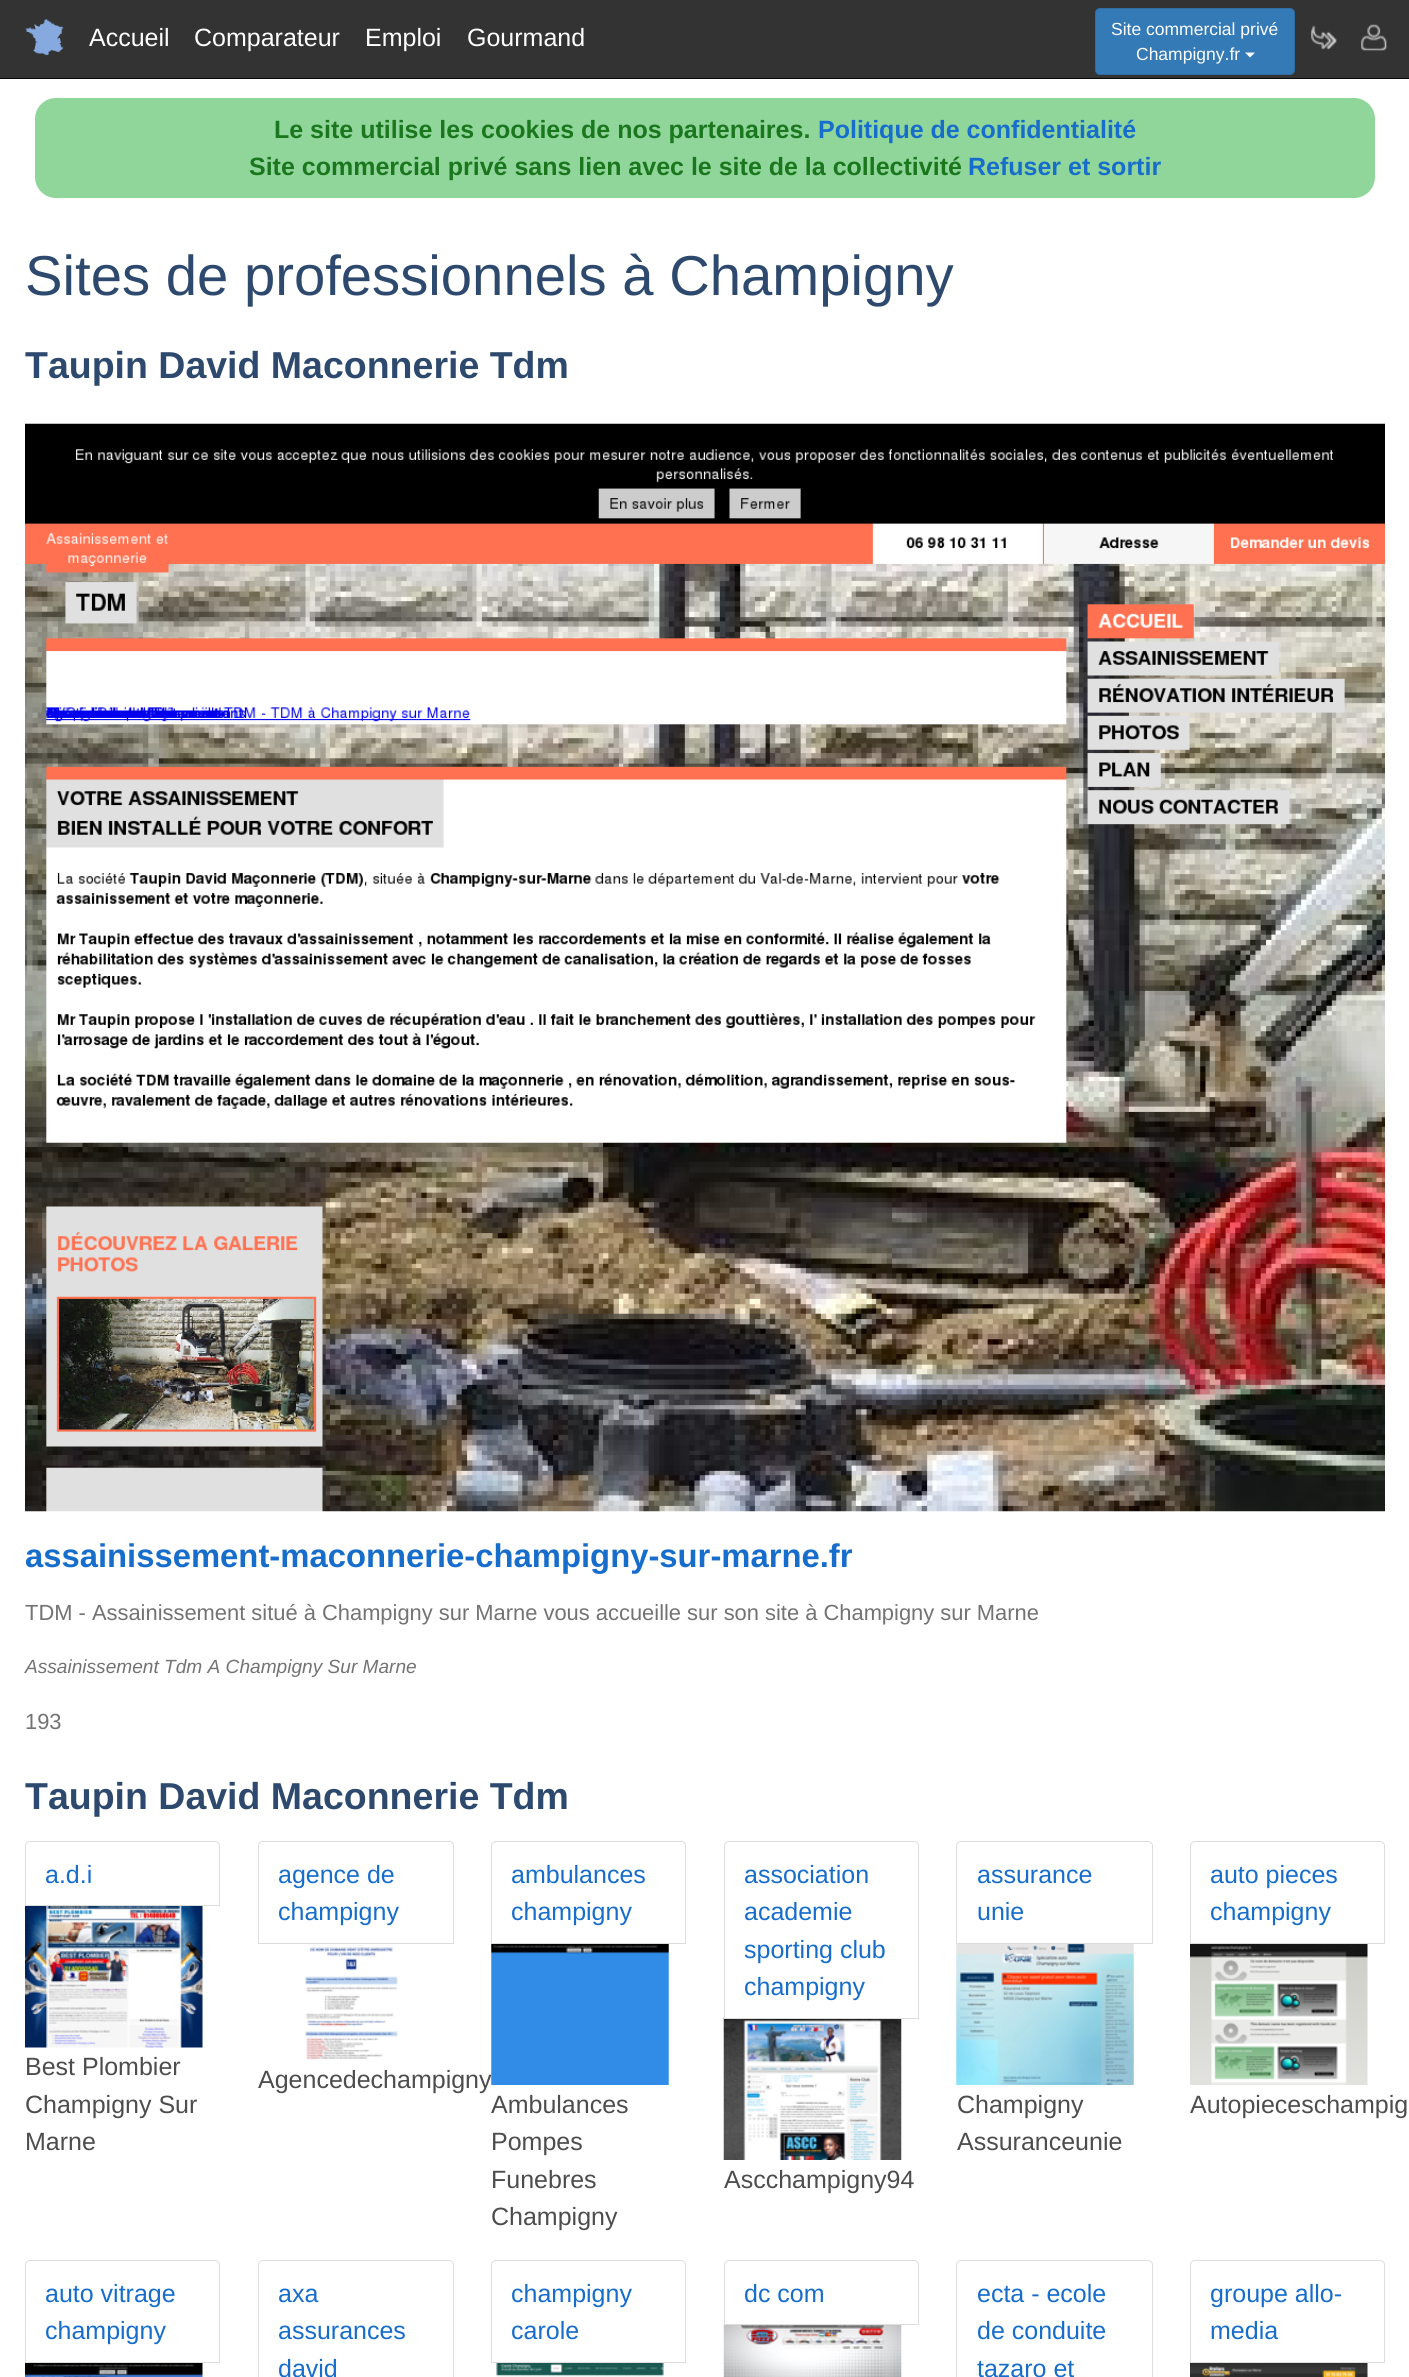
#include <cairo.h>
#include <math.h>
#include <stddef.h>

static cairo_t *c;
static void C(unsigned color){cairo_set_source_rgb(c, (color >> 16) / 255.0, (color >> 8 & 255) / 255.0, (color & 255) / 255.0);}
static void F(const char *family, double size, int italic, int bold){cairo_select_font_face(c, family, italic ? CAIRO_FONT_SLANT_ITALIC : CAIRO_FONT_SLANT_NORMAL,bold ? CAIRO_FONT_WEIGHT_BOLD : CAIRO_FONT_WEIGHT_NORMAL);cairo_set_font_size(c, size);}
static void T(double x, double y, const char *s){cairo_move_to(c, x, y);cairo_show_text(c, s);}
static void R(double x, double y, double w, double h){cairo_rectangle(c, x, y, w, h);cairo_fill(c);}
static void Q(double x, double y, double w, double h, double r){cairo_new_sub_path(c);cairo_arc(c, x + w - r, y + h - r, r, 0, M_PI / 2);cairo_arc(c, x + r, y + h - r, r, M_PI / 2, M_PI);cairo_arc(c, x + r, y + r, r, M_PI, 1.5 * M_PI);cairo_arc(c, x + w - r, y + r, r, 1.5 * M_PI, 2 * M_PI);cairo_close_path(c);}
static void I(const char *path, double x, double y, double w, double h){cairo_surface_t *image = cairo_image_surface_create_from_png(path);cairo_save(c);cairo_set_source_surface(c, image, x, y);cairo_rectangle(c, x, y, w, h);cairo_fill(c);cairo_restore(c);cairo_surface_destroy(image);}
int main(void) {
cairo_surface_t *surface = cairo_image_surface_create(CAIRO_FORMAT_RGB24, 1409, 2377);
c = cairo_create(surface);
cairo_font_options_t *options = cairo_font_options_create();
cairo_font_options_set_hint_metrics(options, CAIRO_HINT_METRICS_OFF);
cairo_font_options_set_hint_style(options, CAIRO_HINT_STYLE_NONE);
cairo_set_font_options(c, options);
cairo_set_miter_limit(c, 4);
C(0xffffff);
cairo_paint(c);
C(0x333333);
R(0,0,1409,78);
C(0x080808);
R(0,78,1409,1);
I("1.png",25,19,39,37);
F("Liberation Sans",25,0,0);
C(0xffffff);
T(89,46,"Accueil");
T(194,46,"Comparateur");
T(365,46,"Emploi");
T(467,46,"Gourmand");
C(0x337ab7);
Q(1095.5,8.5,199,66,4.5);
cairo_fill_preserve(c);
C(0x2e6da4);
cairo_set_line_width(c,1);
cairo_stroke(c);
F("Liberation Sans",17.5,0,0);
C(0xffffff);
T(1111,35,"Site commercial privé");
T(1136,60,"Champigny.fr");
cairo_new_path(c);
cairo_move_to(c,1245,52.5);
cairo_line_to(c,1255,52.5);
cairo_line_to(c,1250,57.5);
cairo_close_path(c);
cairo_fill(c);
I("2.png",1311,25,26,25);
I("3.png",1361,24,26,27);
C(0x90d69a);
Q(35,98,1340,100,21);
cairo_fill(c);
F("Liberation Sans",25,0,1);
C(0x1a771e);
T(274,138,"Le site utilise les cookies de nos partenaires.");
C(0x166dcc);
T(818,138,"Politique de confidentialité");
C(0x1a771e);
T(249,175,"Site commercial privé sans lien avec le site de la collectivité");
C(0x166dcc);
T(968,175,"Refuser et sortir");
F("Liberation Sans",56.25,0,0);
C(0x2e496e);
T(25,295,"Sites de professionnels à Champigny");
F("Liberation Sans",37.5,0,1);
T(25,378,"Taupin David Maconnerie Tdm");
I("4.png",25,423,1360,1089);
F("Liberation Sans",32.8,0,1);
C(0x166dcc);
T(25,1567,"assainissement-maconnerie-champigny-sur-marne.fr");
F("Liberation Sans",21.9,0,0);
C(0x737373);
T(25,1620,"TDM - Assainissement situé à Champigny sur Marne vous accueille sur son site à Champigny sur Marne");
F("Liberation Sans",19.1,1,0);
T(25,1673,"Assainissement Tdm A Champigny Sur Marne");
F("Liberation Sans",21.9,0,0);
T(25,1729,"193");
F("Liberation Sans",37.5,0,1);
C(0x2e496e);
T(25,1809,"Taupin David Maconnerie Tdm");
cairo_new_path(c);
cairo_move_to(c,30,1841.5);
cairo_line_to(c,215,1841.5);
cairo_curve_to(c,217.5,1841.5,219.5,1843.5,219.5,1846);
cairo_line_to(c,219.5,1905.5);
cairo_line_to(c,25.5,1905.5);
cairo_line_to(c,25.5,1846);
cairo_curve_to(c,25.5,1843.5,27.5,1841.5,30,1841.5);
cairo_close_path(c);
C(0xdddddd);
cairo_stroke(c);
F("Liberation Sans",25,0,0);
C(0x166dcc);
T(45,1883,"a.d.i");
I("5.png",25,1906,178,142);
C(0x4d4d4d);
T(25,2075,"Best Plombier");
T(25,2113,"Champigny Sur");
T(25,2150,"Marne");
cairo_new_path(c);
cairo_move_to(c,263,1841.5);
cairo_line_to(c,449,1841.5);
cairo_curve_to(c,451.5,1841.5,453.5,1843.5,453.5,1846);
cairo_line_to(c,453.5,1943.5);
cairo_line_to(c,258.5,1943.5);
cairo_line_to(c,258.5,1846);
cairo_curve_to(c,258.5,1843.5,260.5,1841.5,263,1841.5);
cairo_close_path(c);
C(0xdddddd);
cairo_stroke(c);
C(0x166dcc);
T(278,1883,"agence de");
T(278,1920,"champigny");
I("6.png",305,1947,93,113);
C(0x4d4d4d);
T(258,2088,"Agencedechampigny");
cairo_new_path(c);
cairo_move_to(c,496,1841.5);
cairo_line_to(c,681,1841.5);
cairo_curve_to(c,683.5,1841.5,685.5,1843.5,685.5,1846);
cairo_line_to(c,685.5,1943.5);
cairo_line_to(c,491.5,1943.5);
cairo_line_to(c,491.5,1846);
cairo_curve_to(c,491.5,1843.5,493.5,1841.5,496,1841.5);
cairo_close_path(c);
C(0xdddddd);
cairo_stroke(c);
C(0x166dcc);
T(511,1883,"ambulances");
T(511,1920,"champigny");
I("7.png",491,1944,178,141);
C(0x4d4d4d);
T(491,2113,"Ambulances");
T(491,2150,"Pompes");
T(491,2188,"Funebres");
T(491,2225,"Champigny");
I("8.png",723,2017,179,143);
C(0xffffff);
cairo_new_path(c);
cairo_move_to(c,729,1841.5);
cairo_line_to(c,914,1841.5);
cairo_curve_to(c,916.5,1841.5,918.5,1843.5,918.5,1846);
cairo_line_to(c,918.5,2018.5);
cairo_line_to(c,724.5,2018.5);
cairo_line_to(c,724.5,1846);
cairo_curve_to(c,724.5,1843.5,726.5,1841.5,729,1841.5);
cairo_close_path(c);
cairo_fill_preserve(c);
C(0xdddddd);
cairo_stroke(c);
C(0x166dcc);
T(744,1883,"association");
T(744,1920,"academie");
T(744,1958,"sporting club");
T(744,1995,"champigny");
C(0x4d4d4d);
T(724,2188,"Ascchampigny94");
cairo_new_path(c);
cairo_move_to(c,961,1841.5);
cairo_line_to(c,1148,1841.5);
cairo_curve_to(c,1150.5,1841.5,1152.5,1843.5,1152.5,1846);
cairo_line_to(c,1152.5,1943.5);
cairo_line_to(c,956.5,1943.5);
cairo_line_to(c,956.5,1846);
cairo_curve_to(c,956.5,1843.5,958.5,1841.5,961,1841.5);
cairo_close_path(c);
C(0xdddddd);
cairo_stroke(c);
C(0x166dcc);
T(977,1883,"assurance");
T(977,1920,"unie");
I("9.png",956,1944,178,141);
C(0x4d4d4d);
T(957,2113,"Champigny");
T(957,2150,"Assuranceunie");
cairo_new_path(c);
cairo_move_to(c,1195,1841.5);
cairo_line_to(c,1380,1841.5);
cairo_curve_to(c,1382.5,1841.5,1384.5,1843.5,1384.5,1846);
cairo_line_to(c,1384.5,1943.5);
cairo_line_to(c,1190.5,1943.5);
cairo_line_to(c,1190.5,1846);
cairo_curve_to(c,1190.5,1843.5,1192.5,1841.5,1195,1841.5);
cairo_close_path(c);
C(0xdddddd);
cairo_stroke(c);
C(0x166dcc);
T(1210,1883,"auto pieces");
T(1210,1920,"champigny");
I("10.png",1190,1944,178,141);
C(0x4d4d4d);
T(1190,2113,"Autopieceschampig");
cairo_new_path(c);
cairo_move_to(c,30,2260.5);
cairo_line_to(c,215,2260.5);
cairo_curve_to(c,217.5,2260.5,219.5,2262.5,219.5,2265);
cairo_line_to(c,219.5,2362.5);
cairo_line_to(c,25.5,2362.5);
cairo_line_to(c,25.5,2265);
cairo_curve_to(c,25.5,2262.5,27.5,2260.5,30,2260.5);
cairo_close_path(c);
C(0xdddddd);
cairo_stroke(c);
C(0x166dcc);
T(45,2302,"auto vitrage");
T(45,2339,"champigny");
I("11.png",25,2363,178,14);
cairo_new_path(c);
cairo_move_to(c,263,2260.5);
cairo_line_to(c,449,2260.5);
cairo_curve_to(c,451.5,2260.5,453.5,2262.5,453.5,2265);
cairo_line_to(c,453.5,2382.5);
cairo_line_to(c,258.5,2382.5);
cairo_line_to(c,258.5,2265);
cairo_curve_to(c,258.5,2262.5,260.5,2260.5,263,2260.5);
cairo_close_path(c);
C(0xdddddd);
cairo_stroke(c);
C(0x166dcc);
T(278,2302,"axa");
T(278,2339,"assurances");
T(278,2377,"david");
cairo_new_path(c);
cairo_move_to(c,496,2260.5);
cairo_line_to(c,681,2260.5);
cairo_curve_to(c,683.5,2260.5,685.5,2262.5,685.5,2265);
cairo_line_to(c,685.5,2362.5);
cairo_line_to(c,491.5,2362.5);
cairo_line_to(c,491.5,2265);
cairo_curve_to(c,491.5,2262.5,493.5,2260.5,496,2260.5);
cairo_close_path(c);
C(0xdddddd);
cairo_stroke(c);
C(0x166dcc);
T(511,2302,"champigny");
T(511,2339,"carole");
I("12.png",496,2363,168,14);
I("13.png",723,2323,179,54);
C(0xffffff);
cairo_new_path(c);
cairo_move_to(c,729,2260.5);
cairo_line_to(c,914,2260.5);
cairo_curve_to(c,916.5,2260.5,918.5,2262.5,918.5,2265);
cairo_line_to(c,918.5,2324.5);
cairo_line_to(c,724.5,2324.5);
cairo_line_to(c,724.5,2265);
cairo_curve_to(c,724.5,2262.5,726.5,2260.5,729,2260.5);
cairo_close_path(c);
cairo_fill_preserve(c);
C(0xdddddd);
cairo_stroke(c);
C(0x166dcc);
T(744,2302,"dc com");
cairo_new_path(c);
cairo_move_to(c,961,2260.5);
cairo_line_to(c,1148,2260.5);
cairo_curve_to(c,1150.5,2260.5,1152.5,2262.5,1152.5,2265);
cairo_line_to(c,1152.5,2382.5);
cairo_line_to(c,956.5,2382.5);
cairo_line_to(c,956.5,2265);
cairo_curve_to(c,956.5,2262.5,958.5,2260.5,961,2260.5);
cairo_close_path(c);
C(0xdddddd);
cairo_stroke(c);
C(0x166dcc);
T(977,2302,"ecta - ecole");
T(977,2339,"de conduite");
T(977,2377,"tazaro et");
cairo_new_path(c);
cairo_move_to(c,1195,2260.5);
cairo_line_to(c,1380,2260.5);
cairo_curve_to(c,1382.5,2260.5,1384.5,2262.5,1384.5,2265);
cairo_line_to(c,1384.5,2362.5);
cairo_line_to(c,1190.5,2362.5);
cairo_line_to(c,1190.5,2265);
cairo_curve_to(c,1190.5,2262.5,1192.5,2260.5,1195,2260.5);
cairo_close_path(c);
C(0xdddddd);
cairo_stroke(c);
C(0x166dcc);
T(1210,2302,"groupe allo-");
T(1210,2339,"media");
I("14.png",1190,2363,178,14);
cairo_surface_write_to_png(surface, "o.png");
cairo_font_options_destroy(options);
cairo_destroy(c);
cairo_surface_destroy(surface);
return 0;
}
